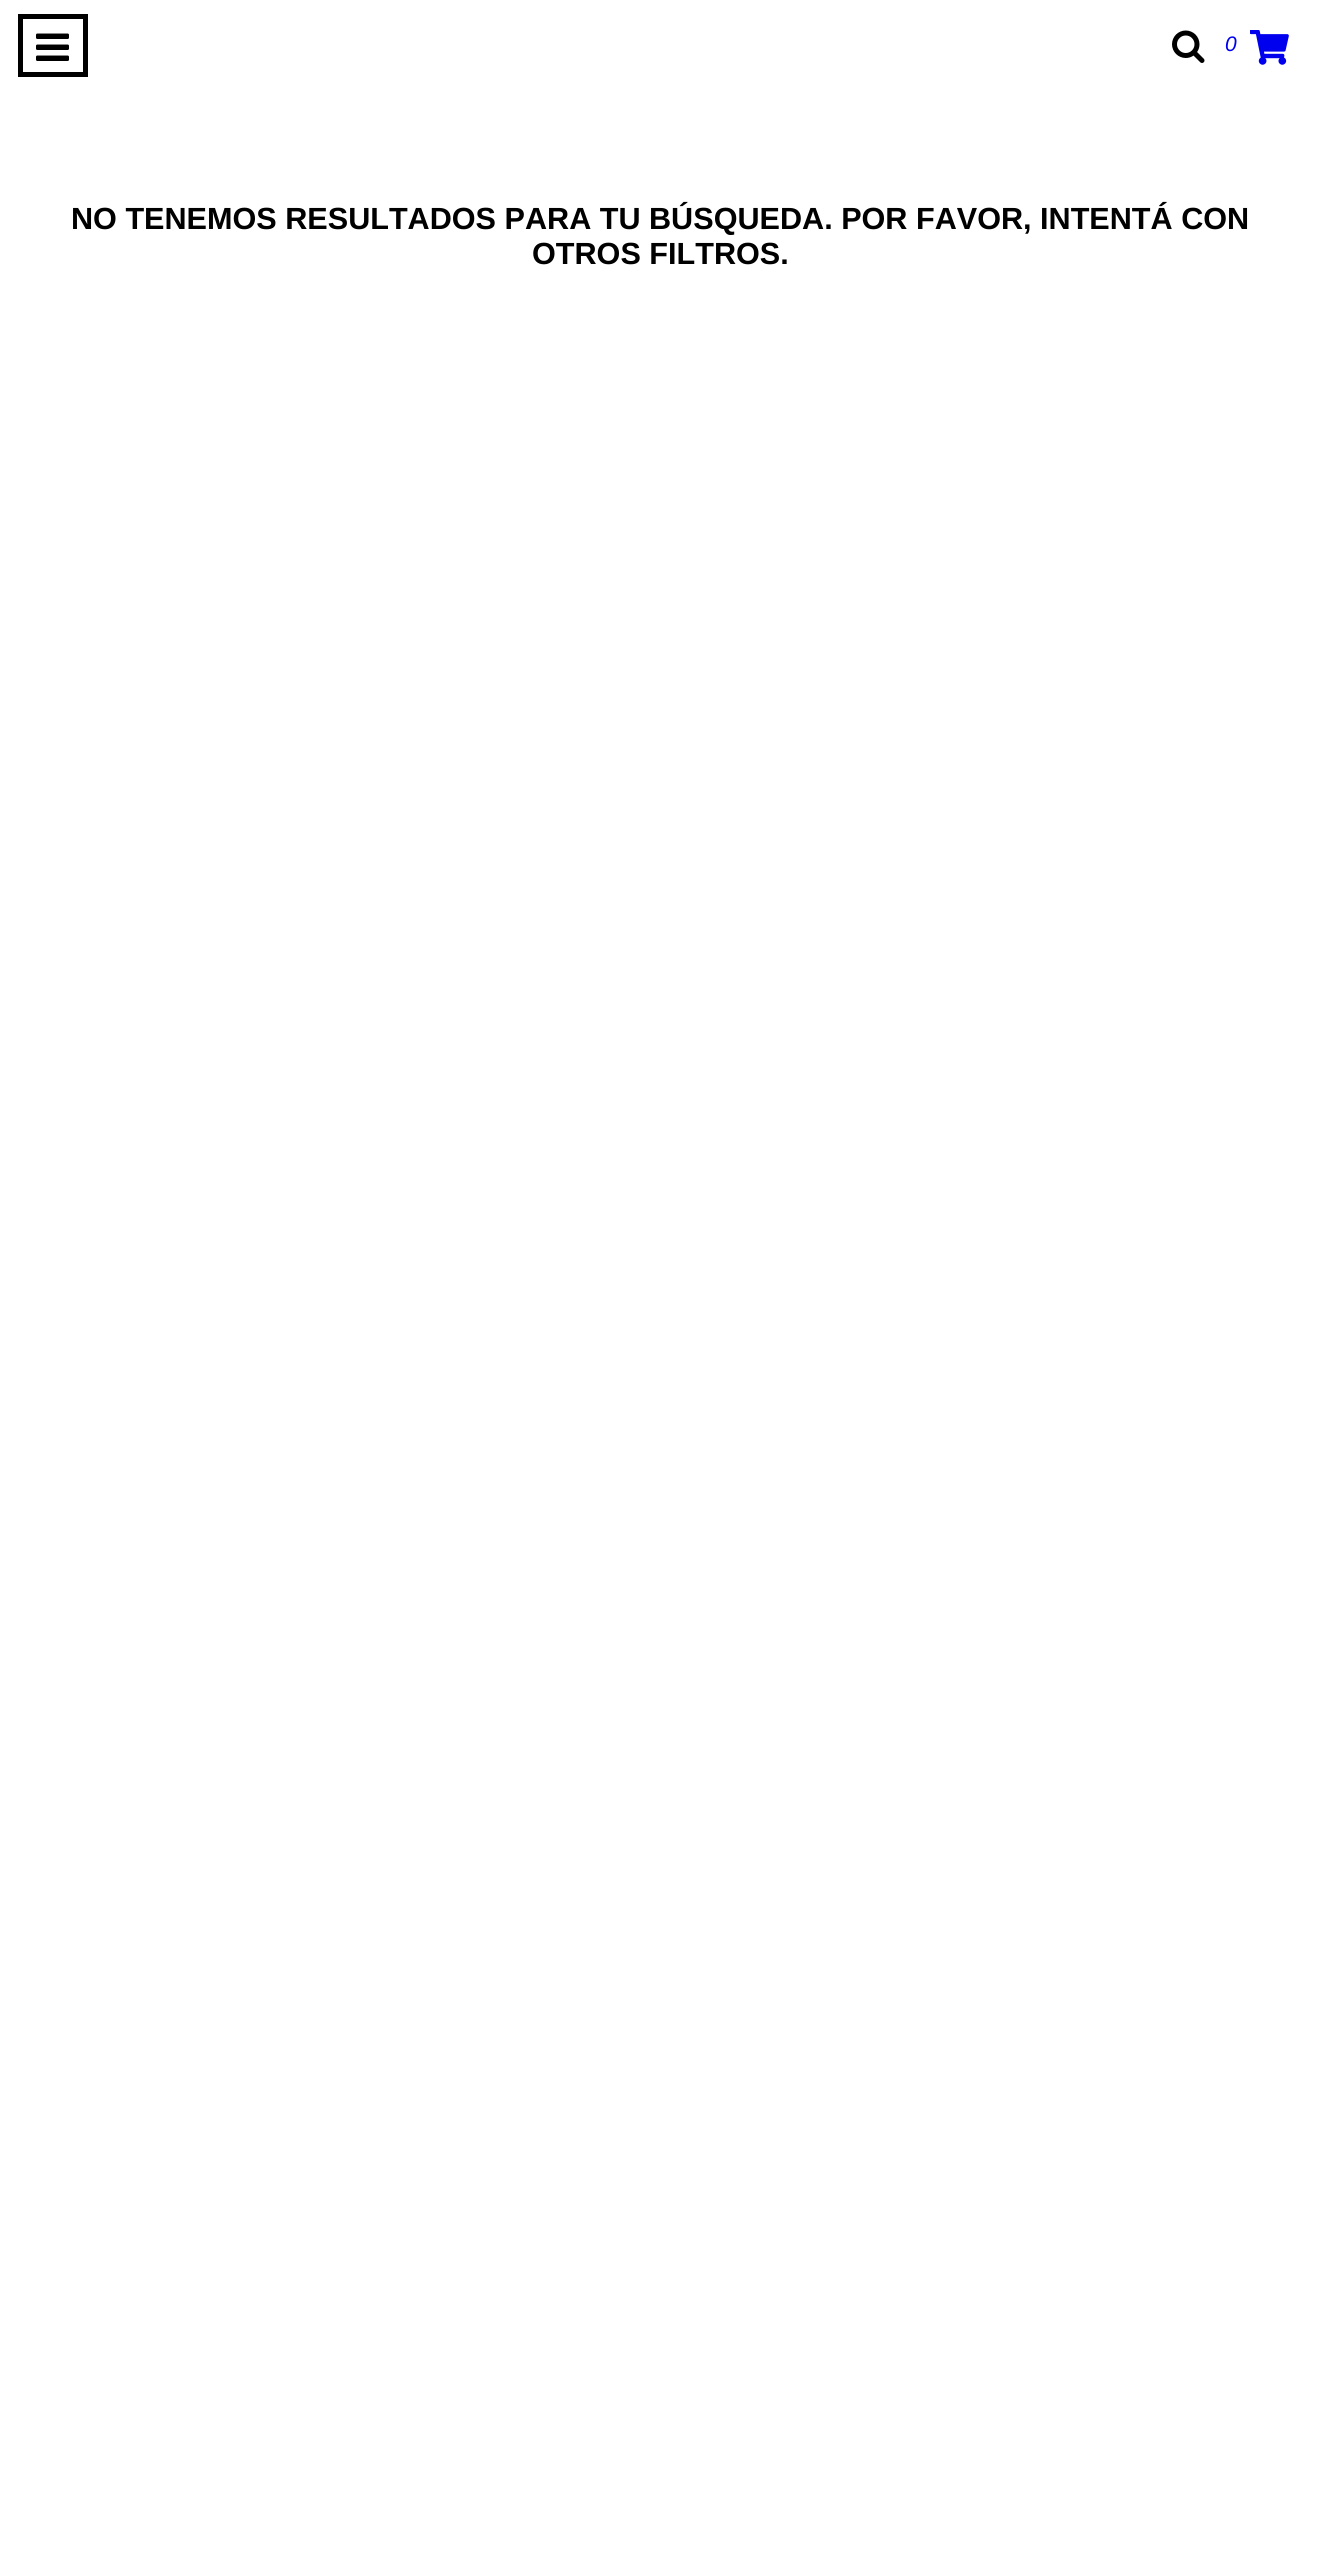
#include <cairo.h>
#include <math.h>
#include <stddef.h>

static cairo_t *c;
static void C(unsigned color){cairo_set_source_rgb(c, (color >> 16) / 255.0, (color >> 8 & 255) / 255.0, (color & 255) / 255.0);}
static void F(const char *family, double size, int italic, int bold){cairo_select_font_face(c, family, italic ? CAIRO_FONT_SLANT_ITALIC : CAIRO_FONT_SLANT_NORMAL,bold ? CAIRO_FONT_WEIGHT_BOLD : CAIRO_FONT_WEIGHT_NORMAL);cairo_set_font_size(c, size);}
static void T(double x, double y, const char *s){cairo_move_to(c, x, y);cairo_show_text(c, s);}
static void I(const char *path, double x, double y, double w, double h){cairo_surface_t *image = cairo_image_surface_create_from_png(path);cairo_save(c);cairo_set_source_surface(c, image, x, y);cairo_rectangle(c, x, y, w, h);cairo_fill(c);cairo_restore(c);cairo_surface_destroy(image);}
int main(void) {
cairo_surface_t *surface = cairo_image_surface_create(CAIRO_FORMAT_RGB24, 1321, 2566);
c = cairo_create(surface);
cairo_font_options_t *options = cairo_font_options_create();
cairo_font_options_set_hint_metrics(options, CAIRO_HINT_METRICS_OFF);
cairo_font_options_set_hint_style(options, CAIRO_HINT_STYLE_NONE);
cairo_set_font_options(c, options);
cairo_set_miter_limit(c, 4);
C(0xffffff);
cairo_paint(c);
cairo_rectangle(c,20.5,16.5,65,58);
C(0x000000);
cairo_set_line_width(c,5);
cairo_stroke(c);
I("1.png",36,33,33,28);
I("2.png",1172,30,33,33);
F("Liberation Sans",21,1,0);
C(0x0000ee);
T(1225,51,"0");
I("3.png",1250,30,39,35);
F("Liberation Sans",30.6,0,1);
C(0x000000);
T(71,229,"NO TENEMOS RESULTADOS PARA TU BÚSQUEDA. POR FAVOR, INTENTÁ CON");
T(532,264,"OTROS FILTROS.");
cairo_surface_write_to_png(surface, "o.png");
cairo_font_options_destroy(options);
cairo_destroy(c);
cairo_surface_destroy(surface);
return 0;
}
